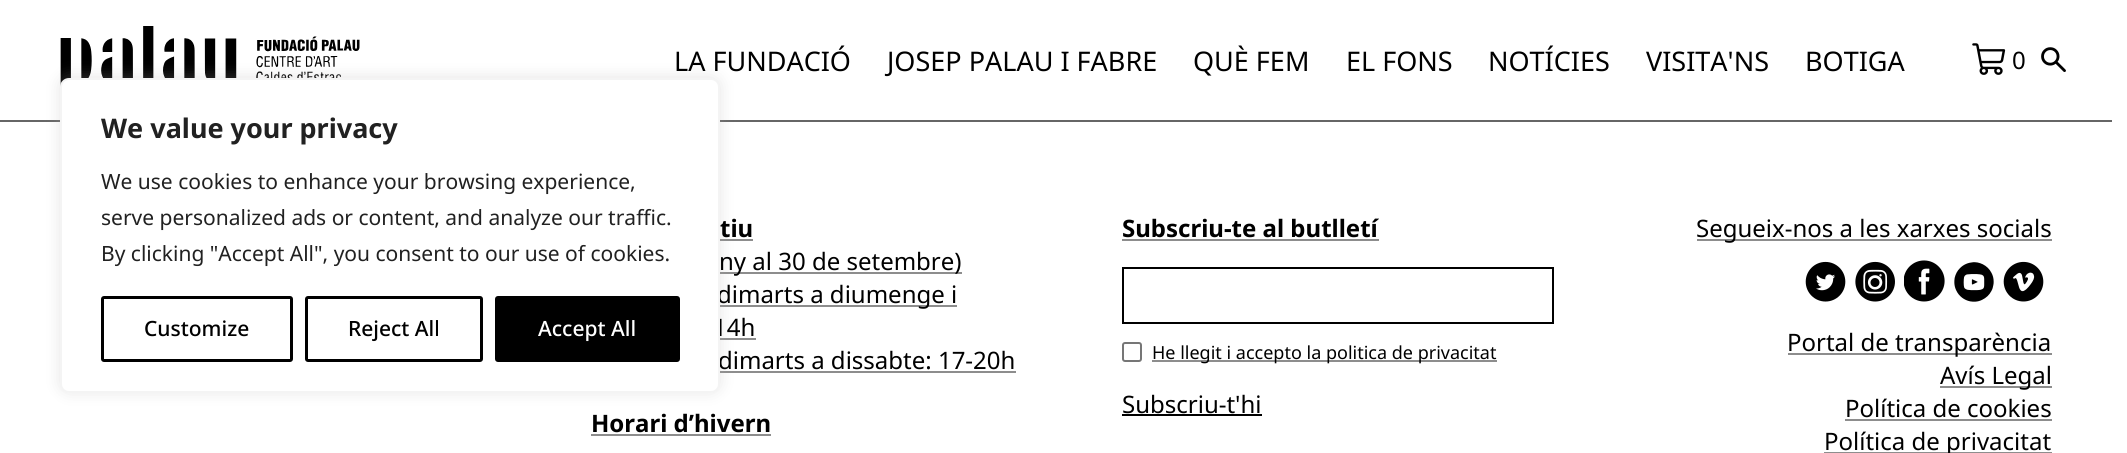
#include <cairo.h>
#include <math.h>
#include <stddef.h>

static cairo_t *c;
static void C(unsigned color){cairo_set_source_rgb(c, (color >> 16) / 255.0, (color >> 8 & 255) / 255.0, (color & 255) / 255.0);}
static void F(const char *family, double size, int italic, int bold){cairo_select_font_face(c, family, italic ? CAIRO_FONT_SLANT_ITALIC : CAIRO_FONT_SLANT_NORMAL,bold ? CAIRO_FONT_WEIGHT_BOLD : CAIRO_FONT_WEIGHT_NORMAL);cairo_set_font_size(c, size);}
static void T(double x, double y, const char *s){cairo_move_to(c, x, y);cairo_show_text(c, s);}
static void R(double x, double y, double w, double h){cairo_rectangle(c, x, y, w, h);cairo_fill(c);}
static void Q(double x, double y, double w, double h, double r){cairo_new_sub_path(c);cairo_arc(c, x + w - r, y + h - r, r, 0, M_PI / 2);cairo_arc(c, x + r, y + h - r, r, M_PI / 2, M_PI);cairo_arc(c, x + r, y + r, r, M_PI, 1.5 * M_PI);cairo_arc(c, x + w - r, y + r, r, 1.5 * M_PI, 2 * M_PI);cairo_close_path(c);}
static void S(double x, double y, double w, double h, double r, double blur, double alpha){cairo_push_group_with_content(c, CAIRO_CONTENT_ALPHA);cairo_set_operator(c, CAIRO_OPERATOR_SOURCE);for (int i = 15; i >= -15 && fmin(w, h) + blur * i / 3 > 0; i -= 2) {double e = blur * i / 6;cairo_set_source_rgba(c, 0, 0, 0, alpha * erfc((i - 1) / 8.5) / 2);Q(x - e, y - e, w + 2 * e, h + 2 * e, fmax(0, fmin(r + e + blur * .6, fmin(w, h) / 2 + e)));cairo_fill(c);}cairo_pattern_t *soft = cairo_pop_group(c);cairo_mask(c, soft);cairo_pattern_destroy(soft);}
static void I(const char *path, double x, double y, double w, double h){cairo_surface_t *image = cairo_image_surface_create_from_png(path);cairo_save(c);cairo_set_source_surface(c, image, x, y);cairo_rectangle(c, x, y, w, h);cairo_fill(c);cairo_restore(c);cairo_surface_destroy(image);}
int main(void) {
cairo_surface_t *surface = cairo_image_surface_create(CAIRO_FORMAT_RGB24, 2127, 453);
c = cairo_create(surface);
cairo_font_options_t *options = cairo_font_options_create();
cairo_font_options_set_hint_metrics(options, CAIRO_HINT_METRICS_OFF);
cairo_font_options_set_hint_style(options, CAIRO_HINT_STYLE_NONE);
cairo_set_font_options(c, options);
cairo_set_miter_limit(c, 4);
C(0xffffff);
cairo_paint(c);
I("1.png",60,26,300,61);
C(0x666666);
R(0,120,2112,2);
C(0x8d8d8d);
R(720,239,33,2);
R(720,272,242,2);
R(720,305,237,2);
R(720,338,36,2);
R(720,371,296,2);
C(0xacabab);
S(60,77,660,315,9,7.5,.3);
F("Noto Sans",24,0,0);
C(0x000000);
T(717,303,"dimarts a diumenge i");
T(713,336,"14h");
T(718,369,"dimarts a dissabte: 17-20h");
C(0xffffff);
Q(61,79,658,313,8);
cairo_fill_preserve(c);
C(0xf4f4f4);
cairo_stroke(c);
F("Noto Sans",27,0,1);
C(0x212121);
T(101,138,"We value your privacy");
F("Noto Sans",21,0,0);
T(101,189,"We use cookies to enhance your browsing experience,");
T(101,225,"serve personalized ads or content, and analyze our traffic.");
T(101,261,"By clicking \"Accept All\", you consent to our use of cookies.");
Q(102.5,297.5,189,63,1.5);
C(0x000000);
cairo_set_line_width(c,3);
cairo_stroke(c);
F("Noto Sans Medium",21,0,0);
T(144,336,"Customize");
Q(306.5,297.5,175,63,1.5);
cairo_stroke(c);
T(348,336,"Reject All");
Q(496.5,297.5,182,63,1.5);
cairo_fill_preserve(c);
cairo_stroke(c);
C(0xffffff);
T(538,336,"Accept All");
F("Noto Sans",27,0,0);
C(0x000000);
T(674,71,"LA FUNDACIÓ");
T(887,71,"JOSEP PALAU I FABRE");
T(1193,71,"QUÈ FEM");
T(1346,71,"EL FONS");
T(1488,71,"NOTÍCIES");
T(1646,71,"VISITA'NS");
T(1805,71,"BOTIGA");
I("2.png",1972,43,34,32);
F("Noto Sans",24,0,0);
T(2012,69,"0");
I("3.png",2041,47,25,25);
F("Noto Sans",24,0,1);
T(720,237,"tiu");
F("Noto Sans",24,0,0);
T(719,270,"ny al 30 de setembre)");
F("Noto Sans",24,0,1);
T(591,432,"Horari d’hivern");
C(0x8d8d8d);
R(591,434,180,2);
C(0x000000);
T(1122,237,"Subscriu-te al butlletí");
C(0x8d8d8d);
R(1122,239,257,2);
cairo_rectangle(c,1123,268,430,55);
C(0x000000);
cairo_set_line_width(c,2);
cairo_stroke(c);
Q(1123,343,18,18,2);
C(0x767676);
cairo_stroke(c);
C(0x8d8d8d);
R(1152,360,345,2);
F("Noto Sans",18,0,0);
C(0x000000);
T(1152,359,"He llegit i accepto la politica de privacitat");
F("Noto Sans",24,0,0);
T(1122,413,"Subscriu-t'hi");
R(1122,414,140,2);
C(0x8d8d8d);
R(1697,239,355,2);
C(0x000000);
T(1696,237,"Segueix-nos a les xarxes socials");
I("4.png",1805,261,41,41);
I("5.png",1855,261,40,41);
I("6.png",1904,260,41,42);
I("7.png",1954,262,40,40);
I("8.png",2003,261,41,41);
C(0x8d8d8d);
R(1788,353,264,2);
C(0x000000);
T(1787,351,"Portal de transparència");
C(0x8d8d8d);
R(1940,386,112,2);
C(0x000000);
T(1940,384,"Avís Legal");
T(1845,417,"Política de cookies");
C(0x8d8d8d);
R(1845,419,207,2);
R(1824,452,228,1);
C(0x000000);
T(1824,450,"Política de privacitat");
cairo_surface_write_to_png(surface, "o.png");
cairo_font_options_destroy(options);
cairo_destroy(c);
cairo_surface_destroy(surface);
return 0;
}
